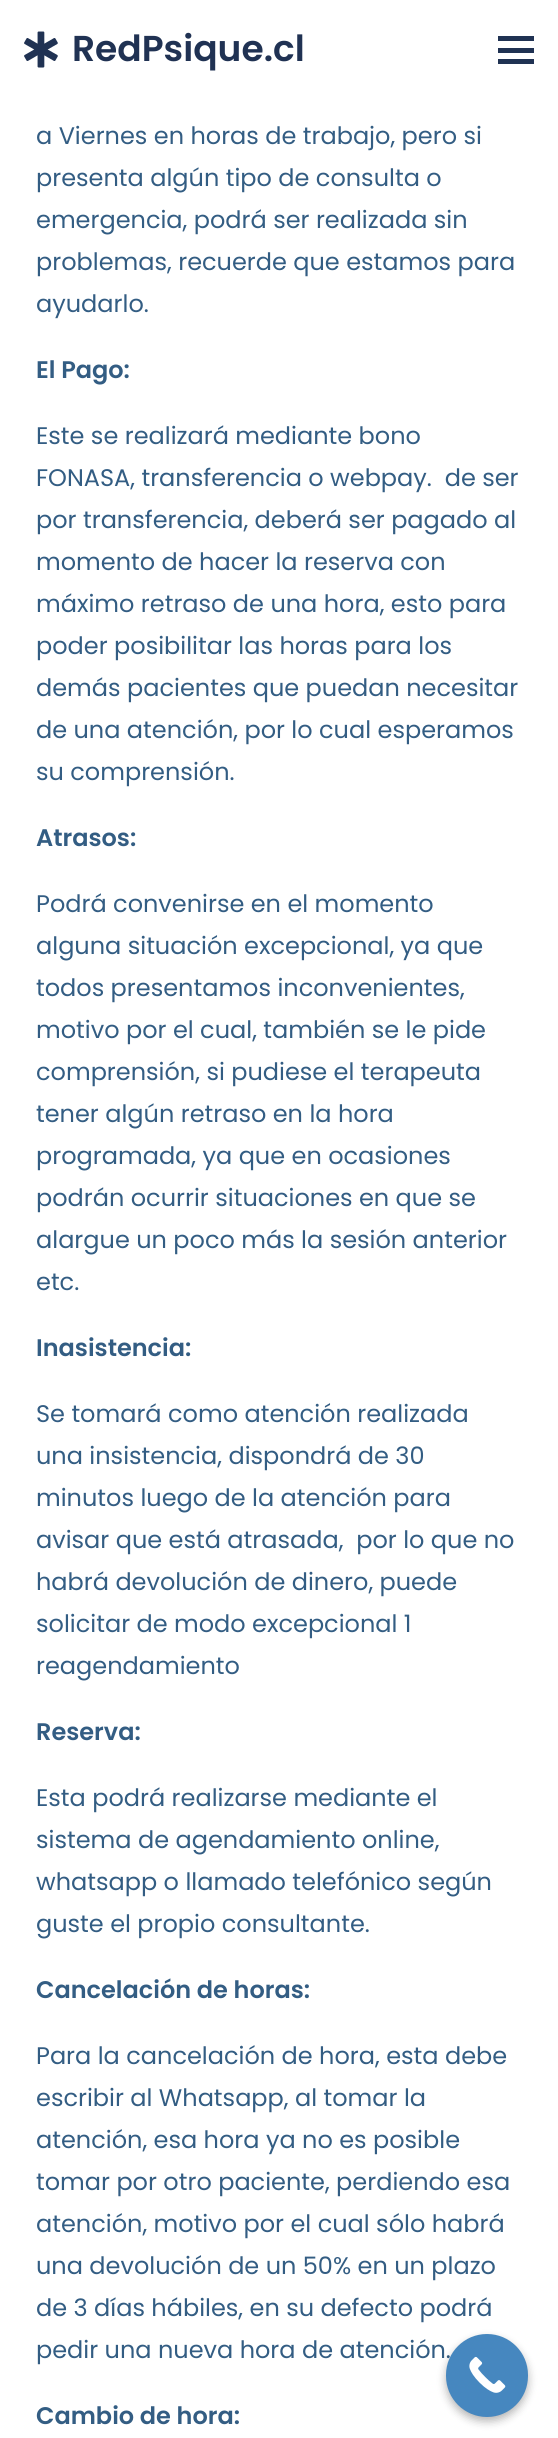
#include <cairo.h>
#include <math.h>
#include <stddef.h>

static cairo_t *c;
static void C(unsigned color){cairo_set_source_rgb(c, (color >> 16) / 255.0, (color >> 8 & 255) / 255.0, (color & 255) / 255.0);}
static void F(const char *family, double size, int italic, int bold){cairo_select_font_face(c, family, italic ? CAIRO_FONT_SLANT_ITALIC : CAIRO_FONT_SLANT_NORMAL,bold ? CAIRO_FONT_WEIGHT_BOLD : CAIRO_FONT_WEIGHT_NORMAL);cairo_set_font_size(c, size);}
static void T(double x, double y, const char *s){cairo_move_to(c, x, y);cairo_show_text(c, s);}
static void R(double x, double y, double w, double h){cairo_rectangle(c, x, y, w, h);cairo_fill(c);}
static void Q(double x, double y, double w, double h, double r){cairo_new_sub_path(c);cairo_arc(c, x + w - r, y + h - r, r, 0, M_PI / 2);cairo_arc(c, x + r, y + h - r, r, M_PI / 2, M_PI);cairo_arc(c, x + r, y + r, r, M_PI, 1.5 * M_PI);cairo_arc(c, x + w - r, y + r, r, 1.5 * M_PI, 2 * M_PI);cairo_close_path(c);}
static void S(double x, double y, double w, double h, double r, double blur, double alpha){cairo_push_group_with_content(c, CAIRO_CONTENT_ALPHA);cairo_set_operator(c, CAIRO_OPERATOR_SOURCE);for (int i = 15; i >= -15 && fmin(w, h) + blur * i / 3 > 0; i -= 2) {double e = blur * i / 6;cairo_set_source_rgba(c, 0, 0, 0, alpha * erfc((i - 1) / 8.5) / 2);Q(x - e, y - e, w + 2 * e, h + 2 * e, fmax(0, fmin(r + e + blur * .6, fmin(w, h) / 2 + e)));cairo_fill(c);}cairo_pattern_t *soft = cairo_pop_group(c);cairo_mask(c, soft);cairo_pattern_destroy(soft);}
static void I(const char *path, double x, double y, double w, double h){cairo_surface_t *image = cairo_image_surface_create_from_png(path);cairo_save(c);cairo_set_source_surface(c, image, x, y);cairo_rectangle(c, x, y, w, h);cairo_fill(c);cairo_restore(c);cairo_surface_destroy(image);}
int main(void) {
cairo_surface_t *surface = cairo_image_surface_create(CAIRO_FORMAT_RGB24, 558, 2438);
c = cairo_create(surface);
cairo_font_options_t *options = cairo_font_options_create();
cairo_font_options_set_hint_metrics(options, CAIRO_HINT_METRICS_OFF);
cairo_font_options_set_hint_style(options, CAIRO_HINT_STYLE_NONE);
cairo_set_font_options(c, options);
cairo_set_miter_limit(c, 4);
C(0xffffff);
cairo_paint(c);
I("1.png",24,31,34,37);
F("Poppins SemiBold",36,0,0);
C(0x203253);
T(72,61,"RedPsique.cl");
R(498,48,36,5);
R(498,36,36,5);
R(498,59,36,5);
F("Poppins",24,0,0);
C(0x335d83);
T(36,144,"a Viernes en horas de trabajo, pero si");
T(36,186,"presenta algún tipo de consulta o");
T(36,228,"emergencia, podrá ser realizada sin");
T(36,270,"problemas, recuerde que estamos para");
T(36,312,"ayudarlo.");
F("Poppins SemiBold",24,0,0);
T(36,378,"El Pago:");
F("Poppins",24,0,0);
T(36,444,"Este se realizará mediante bono");
T(36,486,"FONASA, transferencia o webpay.  de ser");
T(36,528,"por transferencia, deberá ser pagado al");
T(36,570,"momento de hacer la reserva con");
T(36,612,"máximo retraso de una hora, esto para");
T(36,654,"poder posibilitar las horas para los");
T(36,696,"demás pacientes que puedan necesitar");
T(36,738,"de una atención, por lo cual esperamos");
T(36,780,"su comprensión.");
F("Poppins SemiBold",24,0,0);
T(36,846,"Atrasos:");
F("Poppins",24,0,0);
T(36,912,"Podrá convenirse en el momento");
T(36,954,"alguna situación excepcional, ya que");
T(36,996,"todos presentamos inconvenientes,");
T(36,1038,"motivo por el cual, también se le pide");
T(36,1080,"comprensión, si pudiese el terapeuta");
T(36,1122,"tener algún retraso en la hora");
T(36,1164,"programada, ya que en ocasiones");
T(36,1206,"podrán ocurrir situaciones en que se");
T(36,1248,"alargue un poco más la sesión anterior");
T(36,1290,"etc.");
F("Poppins SemiBold",24,0,0);
T(36,1356,"Inasistencia:");
F("Poppins",24,0,0);
T(36,1422,"Se tomará como atención realizada");
T(36,1464,"una insistencia, dispondrá de 30");
T(36,1506,"minutos luego de la atención para");
T(36,1548,"avisar que está atrasada,  por lo que no");
T(36,1590,"habrá devolución de dinero, puede");
T(36,1632,"solicitar de modo excepcional 1");
T(36,1674,"reagendamiento");
F("Poppins SemiBold",24,0,0);
T(36,1740,"Reserva:");
F("Poppins",24,0,0);
T(36,1806,"Esta podrá realizarse mediante el");
T(36,1848,"sistema de agendamiento online,");
T(36,1890,"whatsapp o llamado telefónico según");
T(36,1932,"guste el propio consultante.");
F("Poppins SemiBold",24,0,0);
T(36,1998,"Cancelación de horas:");
F("Poppins",24,0,0);
T(36,2064,"Para la cancelación de hora, esta debe");
T(36,2106,"escribir al Whatsapp, al tomar la");
T(36,2148,"atención, esa hora ya no es posible");
T(36,2190,"tomar por otro paciente, perdiendo esa");
T(36,2232,"atención, motivo por el cual sólo habrá");
T(36,2274,"una devolución de un 50% en un plazo");
T(36,2316,"de 3 días hábiles, en su defecto podrá");
T(36,2358,"pedir una nueva hora de atención.");
F("Poppins SemiBold",24,0,0);
T(36,2424,"Cambio de hora:");
C(0x000000);
S(446,2339,82,82,41,4.5,.3);
C(0x4687bf);
Q(446,2334,82,83,41);
cairo_fill(c);
I("2.png",469,2356,37,37);
cairo_surface_write_to_png(surface, "o.png");
cairo_font_options_destroy(options);
cairo_destroy(c);
cairo_surface_destroy(surface);
return 0;
}
